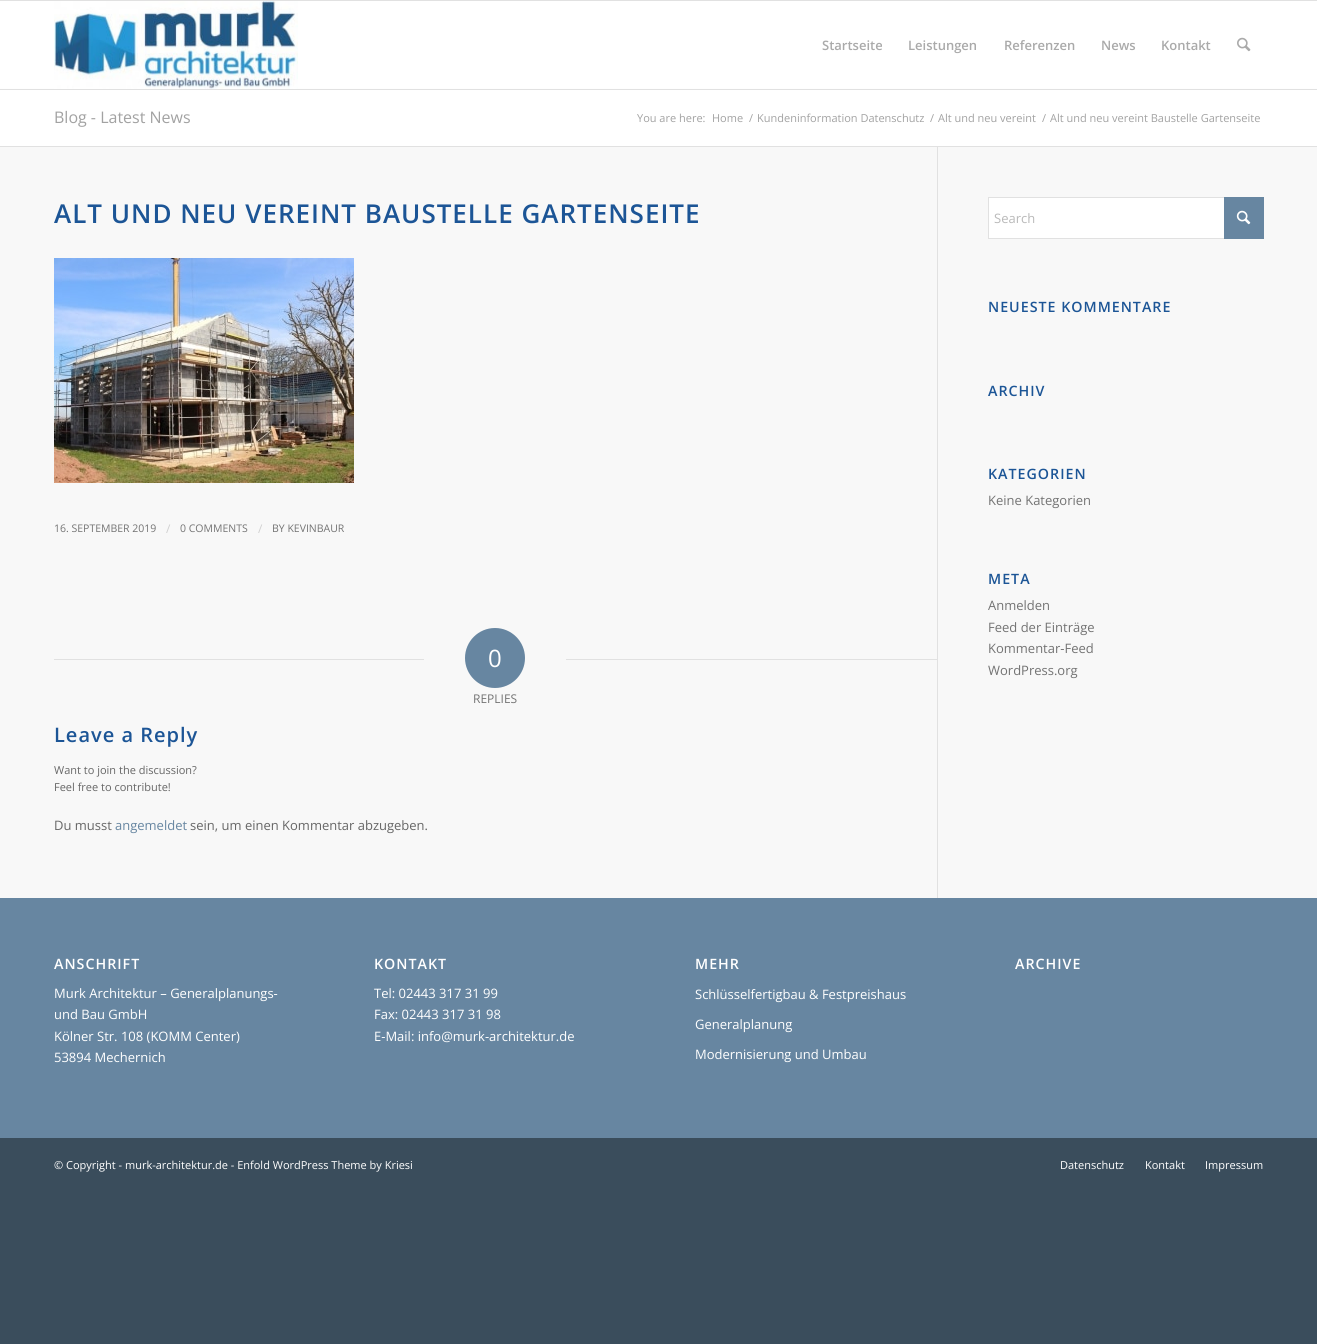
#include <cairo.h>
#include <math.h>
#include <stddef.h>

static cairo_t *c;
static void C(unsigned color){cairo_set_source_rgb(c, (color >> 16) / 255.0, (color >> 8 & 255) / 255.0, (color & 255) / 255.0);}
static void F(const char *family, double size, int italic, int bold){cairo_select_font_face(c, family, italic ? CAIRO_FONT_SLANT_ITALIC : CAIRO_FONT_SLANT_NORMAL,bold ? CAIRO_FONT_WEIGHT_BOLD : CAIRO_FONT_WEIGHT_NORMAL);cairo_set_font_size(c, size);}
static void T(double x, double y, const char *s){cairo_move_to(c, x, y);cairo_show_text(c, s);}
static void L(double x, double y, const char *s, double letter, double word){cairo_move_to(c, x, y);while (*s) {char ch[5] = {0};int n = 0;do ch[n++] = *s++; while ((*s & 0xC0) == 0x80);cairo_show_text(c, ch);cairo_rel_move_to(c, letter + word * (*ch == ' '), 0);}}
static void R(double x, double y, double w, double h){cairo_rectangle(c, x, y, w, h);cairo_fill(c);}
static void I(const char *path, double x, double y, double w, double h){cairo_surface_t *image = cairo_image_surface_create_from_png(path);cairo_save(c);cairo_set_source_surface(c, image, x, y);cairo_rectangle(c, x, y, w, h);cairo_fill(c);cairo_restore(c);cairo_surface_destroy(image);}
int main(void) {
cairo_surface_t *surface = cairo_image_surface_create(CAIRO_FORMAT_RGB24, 1317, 1344);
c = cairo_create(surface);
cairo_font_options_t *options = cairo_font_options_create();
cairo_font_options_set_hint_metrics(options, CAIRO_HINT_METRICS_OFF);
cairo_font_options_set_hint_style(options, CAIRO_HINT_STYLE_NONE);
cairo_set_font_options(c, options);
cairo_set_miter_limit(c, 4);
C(0x3a4d5c);
cairo_paint(c);
C(0xe1e1e1);
R(0,0,1317,1);
R(0,89,1317,1);
C(0xffffff);
R(0,1,1317,87);
C(0xfefefe);
R(0,88,1317,1);
I("1.png",54,1,244,88);
F("Open Sans SemiBold",13,0,0);
C(0xaaaaaa);
T(822,50,"Startseite");
T(908,50,"Leistungen");
T(1004,50,"Referenzen");
T(1101,50,"News");
T(1161,50,"Kontakt");
I("2.png",1237,37,14,15);
C(0xffffff);
R(0,90,1317,56);
F("Open Sans",16,0,0);
C(0xa2a2a2);
T(54,123,"Blog - Latest News");
F("Open Sans",11,0,0);
T(637,122,"You are here:");
T(712,122,"Home");
T(749,122,"/");
T(757,122,"Kundeninformation Datenschutz");
T(930,122,"/");
T(938,122,"Alt und neu vereint");
T(1042,122,"/");
T(1050,122,"Alt und neu vereint Baustelle Gartenseite");
C(0xf8f8f8);
R(0,147,1317,751);
C(0xe1e1e1);
R(0,146,1317,1);
R(937,147,1,751);
F("Open Sans SemiBold",26,0,0);
C(0x1c5596);
L(54,223,"ALT UND NEU VEREINT BAUSTELLE GARTENSEITE",1,0);
I("3.png",54,258,300,225);
F("Open Sans",10.5,0,0);
C(0x737373);
T(54,532,"16. SEPTEMBER 2019");
F("Open Sans",12,0,0);
C(0xd0d0d0);
T(166,533,"/");
F("Open Sans",10.5,0,0);
C(0x737373);
T(180,532,"0 COMMENTS");
F("Open Sans",12,0,0);
C(0xd0d0d0);
T(258,533,"/");
F("Open Sans",10.5,0,0);
C(0x737373);
T(272,532,"BY KEVINBAUR");
C(0xe1e1e1);
R(54,659,370,1);
C(0x6786a1);
cairo_new_path(c);
cairo_arc(c,495,658,30,0,2 * M_PI);
cairo_fill(c);
F("Open Sans",24,0,0);
C(0xffffff);
T(488,667,"0");
C(0xe1e1e1);
R(566,659,371,1);
F("Open Sans",12,0,0);
C(0x737373);
T(473,703,"REPLIES");
F("Open Sans SemiBold",20,0,0);
C(0x1c5596);
L(54,742,"Leave a Reply",1,0);
F("Open Sans",11,0,0);
C(0x666666);
T(54,774,"Want to join the discussion?");
T(54,791,"Feel free to contribute!");
F("Open Sans",13,0,0);
T(54,830,"Du musst");
C(0x6786a1);
T(115,830,"angemeldet");
C(0x666666);
T(190,830,"sein, um einen Kommentar abzugeben.");
C(0xffffff);
R(989,198,235,40);
cairo_rectangle(c,988.5,197.5,275,41);
C(0xe1e1e1);
cairo_set_line_width(c,1);
cairo_stroke(c);
C(0x6786a1);
R(1224,197,40,42);
C(0xb9b9b9);
T(994,223,"Search");
I("4.png",1236,210,15,15);
F("Open Sans SemiBold",14.25,0,0);
C(0x1c5596);
L(988,312,"NEUESTE KOMMENTARE",1,0);
L(988,396,"ARCHIV",1,0);
L(988,479,"KATEGORIEN",1,0);
F("Open Sans",13,0,0);
C(0x737373);
T(988,505,"Keine Kategorien");
F("Open Sans SemiBold",14.25,0,0);
C(0x1c5596);
L(988,584,"META",1,0);
F("Open Sans",13,0,0);
C(0x737373);
T(988,610,"Anmelden");
T(988,632,"Feed der Einträge");
T(988,653,"Kommentar-Feed");
T(988,675,"WordPress.org");
C(0x6786a1);
R(0,898,1317,240);
F("Open Sans SemiBold",14.25,0,0);
C(0xffffff);
L(54,969,"ANSCHRIFT",1,0);
F("Open Sans",13,0,0);
T(54,998,"Murk Architektur – Generalplanungs-");
T(54,1019,"und Bau GmbH");
T(54,1041,"Kölner Str. 108 (KOMM Center)");
T(54,1062,"53894 Mechernich");
F("Open Sans SemiBold",14.25,0,0);
L(374,969,"KONTAKT",1,0);
F("Open Sans",13,0,0);
T(374,998,"Tel: 02443 317 31 99");
T(374,1019,"Fax: 02443 317 31 98");
T(374,1041,"E-Mail: info@murk-architektur.de");
F("Open Sans SemiBold",14.25,0,0);
L(695,969,"MEHR",1,0);
F("Open Sans",13,0,0);
T(695,999,"Schlüsselfertigbau & Festpreishaus");
T(695,1029,"Generalplanung");
T(695,1059,"Modernisierung und Umbau");
F("Open Sans SemiBold",14.25,0,0);
L(1015,969,"ARCHIVE",1,0);
F("Open Sans",11,0,0);
T(54,1169,"© Copyright - murk-architektur.de - Enfold WordPress Theme by Kriesi");
T(1060,1169,"Datenschutz");
T(1145,1169,"Kontakt");
T(1205,1169,"Impressum");
cairo_surface_write_to_png(surface, "o.png");
cairo_font_options_destroy(options);
cairo_destroy(c);
cairo_surface_destroy(surface);
return 0;
}
